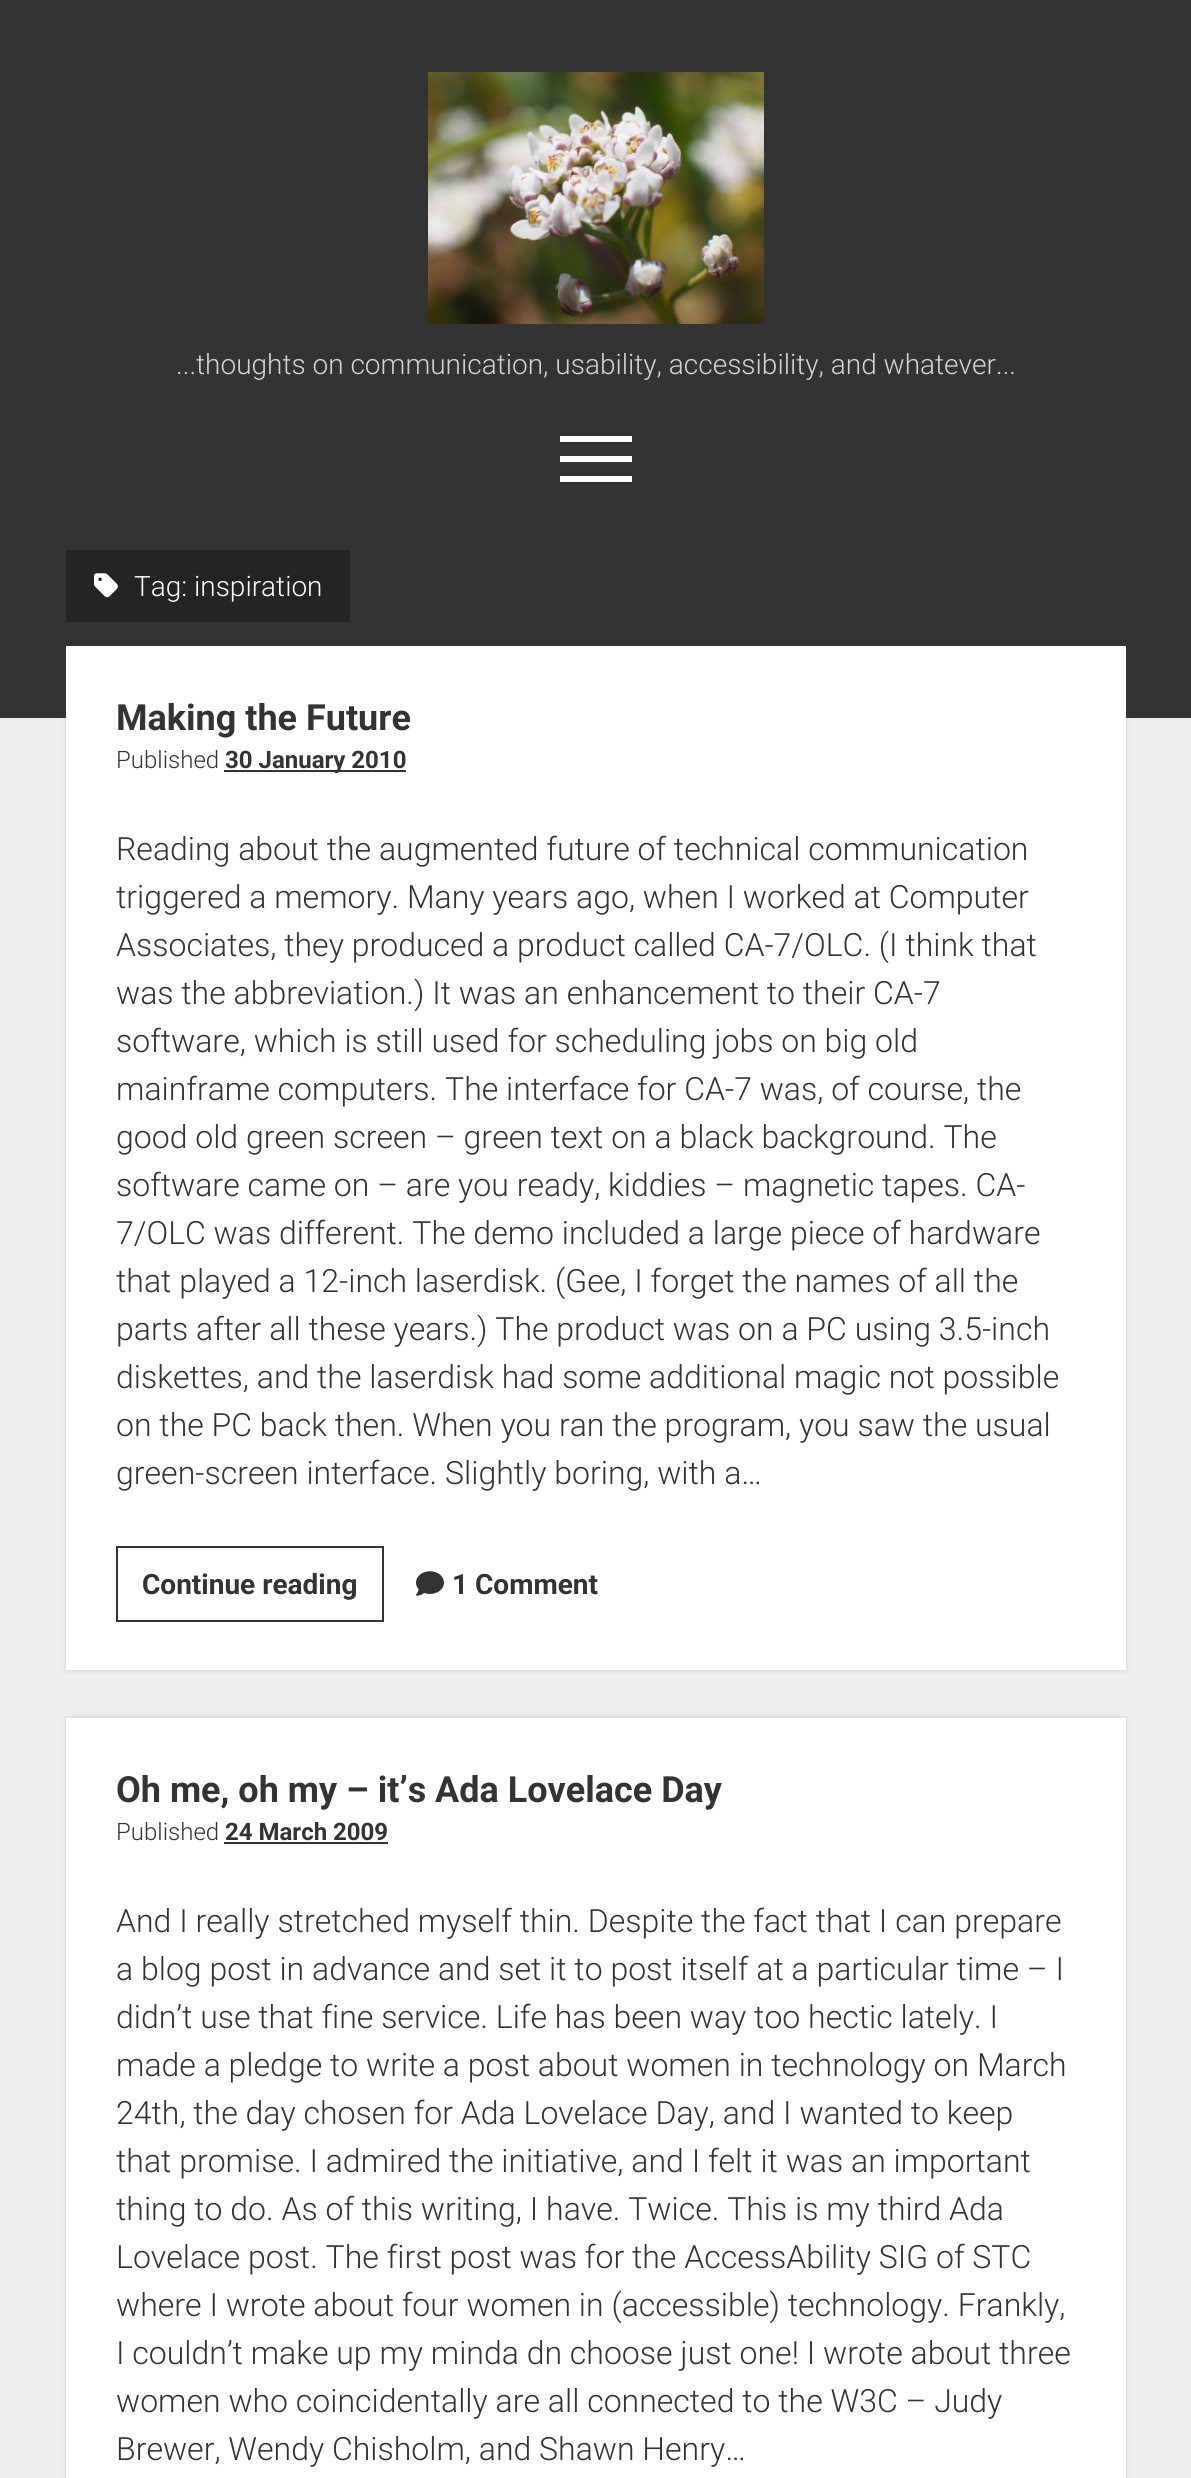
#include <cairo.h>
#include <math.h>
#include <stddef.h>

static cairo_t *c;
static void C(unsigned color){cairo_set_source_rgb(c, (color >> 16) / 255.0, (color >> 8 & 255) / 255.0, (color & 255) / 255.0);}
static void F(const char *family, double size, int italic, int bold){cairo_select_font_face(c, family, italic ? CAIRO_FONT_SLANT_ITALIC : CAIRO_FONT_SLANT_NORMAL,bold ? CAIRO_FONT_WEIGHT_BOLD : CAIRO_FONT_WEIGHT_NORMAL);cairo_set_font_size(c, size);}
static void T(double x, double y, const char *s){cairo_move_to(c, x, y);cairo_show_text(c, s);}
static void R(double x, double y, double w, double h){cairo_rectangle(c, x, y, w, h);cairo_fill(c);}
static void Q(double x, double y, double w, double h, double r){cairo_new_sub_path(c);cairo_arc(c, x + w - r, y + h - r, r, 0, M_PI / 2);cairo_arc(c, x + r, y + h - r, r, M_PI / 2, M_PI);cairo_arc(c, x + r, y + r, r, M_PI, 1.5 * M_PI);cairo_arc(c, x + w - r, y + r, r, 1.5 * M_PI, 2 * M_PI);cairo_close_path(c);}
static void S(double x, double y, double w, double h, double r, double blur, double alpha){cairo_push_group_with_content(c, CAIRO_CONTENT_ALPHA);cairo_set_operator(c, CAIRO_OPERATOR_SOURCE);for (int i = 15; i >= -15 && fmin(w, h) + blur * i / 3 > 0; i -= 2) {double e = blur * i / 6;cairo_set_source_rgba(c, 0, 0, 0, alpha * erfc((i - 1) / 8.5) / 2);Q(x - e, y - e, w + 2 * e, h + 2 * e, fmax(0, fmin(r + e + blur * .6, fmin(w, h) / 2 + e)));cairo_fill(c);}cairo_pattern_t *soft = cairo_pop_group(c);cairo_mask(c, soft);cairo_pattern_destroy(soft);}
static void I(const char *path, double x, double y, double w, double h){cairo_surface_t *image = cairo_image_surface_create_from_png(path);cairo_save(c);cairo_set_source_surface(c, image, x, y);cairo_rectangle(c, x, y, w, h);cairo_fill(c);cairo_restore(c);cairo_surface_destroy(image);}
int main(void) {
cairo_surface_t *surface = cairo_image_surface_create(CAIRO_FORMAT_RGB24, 1191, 2478);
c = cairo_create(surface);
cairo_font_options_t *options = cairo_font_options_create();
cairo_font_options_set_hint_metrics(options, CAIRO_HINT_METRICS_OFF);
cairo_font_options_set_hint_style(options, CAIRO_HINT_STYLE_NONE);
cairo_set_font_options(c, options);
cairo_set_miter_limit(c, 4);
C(0xededed);
cairo_paint(c);
C(0x333333);
R(0,0,1191,718);
I("1.png",428,72,336,252);
F("Roboto Light",28,0,0);
C(0xd4d4d4);
T(176,374,"...thoughts on communication, usability, accessibility, and whatever...");
C(0xffffff);
R(560,436,72,6);
R(560,456,72,6);
R(560,476,72,6);
C(0x242424);
R(66,550,284,72);
I("2.png",94,573,24,25);
C(0xffffff);
T(134,596,"Tag: inspiration");
C(0x3a3a3a);
S(66,646,1060,1024,0,2,.2);
C(0xffffff);
R(66,646,1060,1024);
F("Roboto",36,0,1);
C(0x333333);
T(116,730,"Making the Future");
F("Roboto Light",24,0,0);
T(116,768,"Published");
R(224,770,182,2);
F("Roboto",24,0,1);
T(225,768,"30 January 2010");
F("Roboto Light",32,0,0);
T(116,860,"Reading about the augmented future of technical communication");
T(116,908,"triggered a memory. Many years ago, when I worked at Computer");
T(116,956,"Associates, they produced a product called CA-7/OLC. (I think that");
T(116,1004,"was the abbreviation.) It was an enhancement to their CA-7");
T(116,1052,"software, which is still used for scheduling jobs on big old");
T(116,1100,"mainframe computers. The interface for CA-7 was, of course, the");
T(116,1148,"good old green screen – green text on a black background. The");
T(116,1196,"software came on – are you ready, kiddies – magnetic tapes. CA-");
T(116,1244,"7/OLC was different. The demo included a large piece of hardware");
T(116,1292,"that played a 12-inch laserdisk. (Gee, I forget the names of all the");
T(116,1340,"parts after all these years.) The product was on a PC using 3.5-inch");
T(116,1388,"diskettes, and the laserdisk had some additional magic not possible");
T(116,1436,"on the PC back then. When you ran the program, you saw the usual");
T(116,1484,"green-screen interface. Slightly boring, with a…");
cairo_rectangle(c,117,1547,266,74);
cairo_stroke(c);
F("Roboto",28,0,1);
T(142,1594,"Continue reading");
I("3.png",416,1571,28,25);
T(452,1594,"1 Comment");
C(0x3a3a3a);
S(66,1718,1060,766,0,2,.2);
C(0xffffff);
R(66,1718,1060,760);
F("Roboto",36,0,1);
C(0x333333);
T(116,1802,"Oh me, oh my – it’s Ada Lovelace Day");
F("Roboto Light",24,0,0);
T(116,1840,"Published");
F("Roboto",24,0,1);
T(225,1840,"24 March 2009");
R(224,1842,164,2);
F("Roboto Light",32,0,0);
T(116,1932,"And I really stretched myself thin. Despite the fact that I can prepare");
T(116,1980,"a blog post in advance and set it to post itself at a particular time – I");
T(116,2028,"didn’t use that fine service. Life has been way too hectic lately. I");
T(116,2076,"made a pledge to write a post about women in technology on March");
T(116,2124,"24th, the day chosen for Ada Lovelace Day, and I wanted to keep");
T(116,2172,"that promise. I admired the initiative, and I felt it was an important");
T(116,2220,"thing to do. As of this writing, I have. Twice. This is my third Ada");
T(116,2268,"Lovelace post. The first post was for the AccessAbility SIG of STC");
T(116,2316,"where I wrote about four women in (accessible) technology. Frankly,");
T(116,2364,"I couldn’t make up my minda dn choose just one! I wrote about three");
T(116,2412,"women who coincidentally are all connected to the W3C – Judy");
T(116,2460,"Brewer, Wendy Chisholm, and Shawn Henry…");
cairo_surface_write_to_png(surface, "o.png");
cairo_font_options_destroy(options);
cairo_destroy(c);
cairo_surface_destroy(surface);
return 0;
}
